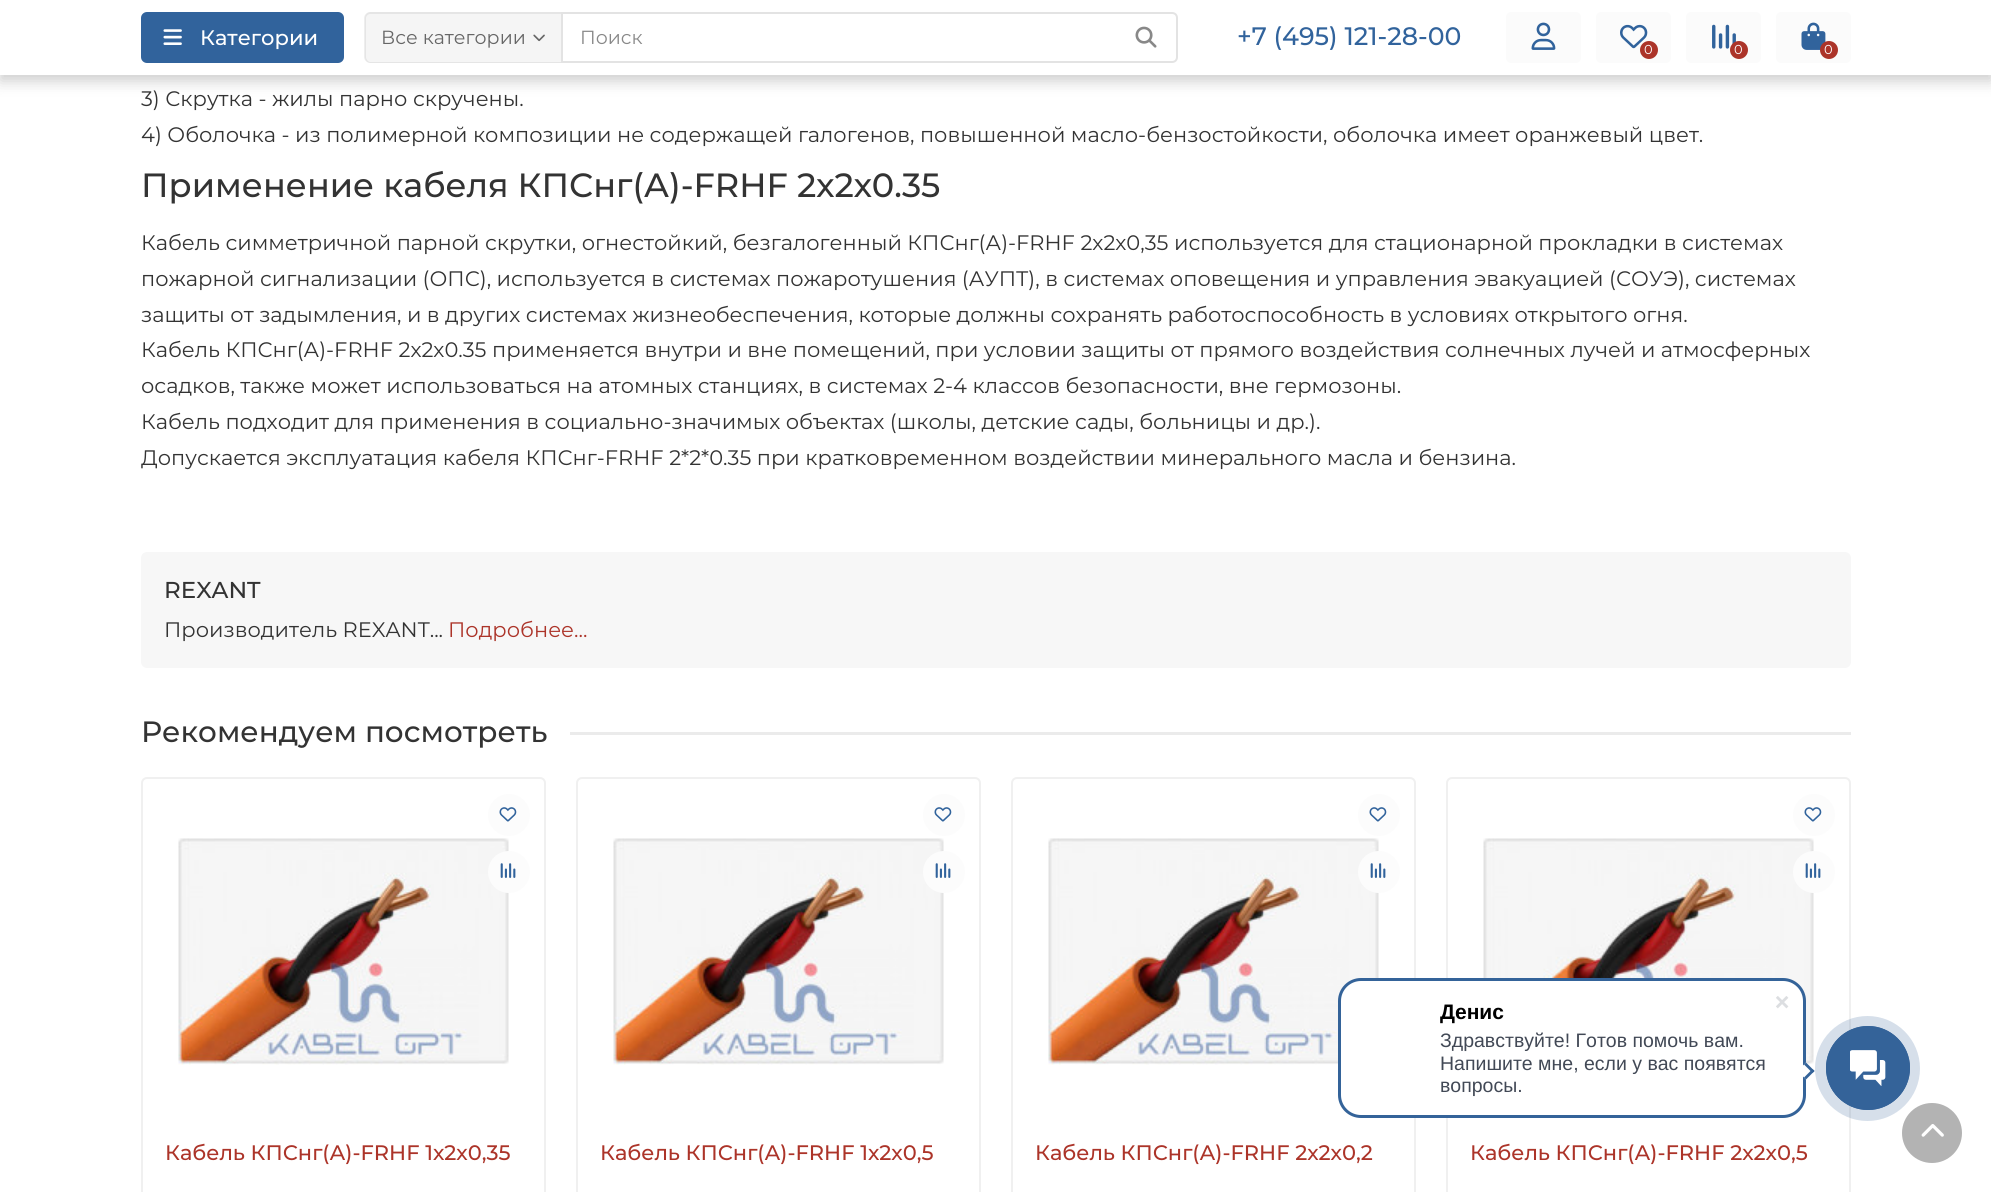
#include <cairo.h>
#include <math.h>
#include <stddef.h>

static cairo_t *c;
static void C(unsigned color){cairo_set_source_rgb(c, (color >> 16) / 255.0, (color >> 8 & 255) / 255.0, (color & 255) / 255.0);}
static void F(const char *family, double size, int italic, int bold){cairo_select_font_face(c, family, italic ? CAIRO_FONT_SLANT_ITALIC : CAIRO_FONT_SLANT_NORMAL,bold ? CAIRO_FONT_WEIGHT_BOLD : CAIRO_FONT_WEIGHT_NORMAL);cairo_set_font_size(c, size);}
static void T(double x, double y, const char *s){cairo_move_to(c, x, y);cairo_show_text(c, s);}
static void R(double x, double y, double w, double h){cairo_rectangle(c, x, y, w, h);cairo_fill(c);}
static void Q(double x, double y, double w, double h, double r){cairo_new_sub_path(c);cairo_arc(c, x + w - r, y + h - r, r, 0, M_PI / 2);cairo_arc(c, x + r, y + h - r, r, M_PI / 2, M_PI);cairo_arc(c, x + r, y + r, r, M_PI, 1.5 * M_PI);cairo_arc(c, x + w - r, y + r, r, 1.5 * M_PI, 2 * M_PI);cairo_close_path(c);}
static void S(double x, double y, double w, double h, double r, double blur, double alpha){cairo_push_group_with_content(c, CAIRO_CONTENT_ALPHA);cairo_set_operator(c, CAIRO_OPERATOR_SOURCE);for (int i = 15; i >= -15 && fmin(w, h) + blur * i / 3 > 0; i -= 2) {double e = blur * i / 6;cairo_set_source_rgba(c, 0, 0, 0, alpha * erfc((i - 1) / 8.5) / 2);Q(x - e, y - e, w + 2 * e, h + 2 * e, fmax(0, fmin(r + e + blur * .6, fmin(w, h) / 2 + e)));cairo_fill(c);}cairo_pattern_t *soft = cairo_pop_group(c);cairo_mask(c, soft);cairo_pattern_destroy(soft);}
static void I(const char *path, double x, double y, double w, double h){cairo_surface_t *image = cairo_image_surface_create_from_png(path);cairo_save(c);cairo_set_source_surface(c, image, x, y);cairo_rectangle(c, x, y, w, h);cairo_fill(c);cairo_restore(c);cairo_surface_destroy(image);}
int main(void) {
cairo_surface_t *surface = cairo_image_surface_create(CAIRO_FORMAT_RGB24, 1991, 1192);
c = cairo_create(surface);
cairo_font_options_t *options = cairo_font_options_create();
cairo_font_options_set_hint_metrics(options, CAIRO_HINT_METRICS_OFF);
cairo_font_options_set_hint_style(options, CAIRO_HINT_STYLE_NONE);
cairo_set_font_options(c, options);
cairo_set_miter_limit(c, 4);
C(0xffffff);
cairo_paint(c);
C(0x000000);
S(0,6,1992,75,0,7.5,.2);
C(0xffffff);
R(0,0,1991,75);
C(0x31639c);
Q(141,12,203,51,6);
cairo_fill(c);
I("1.png",163,29,19,16);
F("Montserrat Medium",21,0,0);
C(0xffffff);
T(200,45,"Категории");
C(0xf5f5f5);
cairo_new_path(c);
cairo_move_to(c,371,12);
cairo_line_to(c,561,12);
cairo_line_to(c,561,63);
cairo_line_to(c,371,63);
cairo_curve_to(c,367.5,63,365,60.5,365,57);
cairo_line_to(c,365,18);
cairo_curve_to(c,365,14.5,367.5,12,371,12);
cairo_close_path(c);
cairo_fill(c);
cairo_set_source_rgba(c,0,0,0,0.07);
cairo_set_fill_rule(c,CAIRO_FILL_RULE_EVEN_ODD);
cairo_new_path(c);
cairo_move_to(c,370,12);
cairo_line_to(c,561,12);
cairo_line_to(c,561,63);
cairo_line_to(c,370,63);
cairo_curve_to(c,367,63,364,60,364,57);
cairo_line_to(c,364,18);
cairo_curve_to(c,364,15,367,12,370,12);
cairo_close_path(c);
cairo_move_to(c,370,14);
cairo_line_to(c,561,14);
cairo_line_to(c,561,62);
cairo_line_to(c,370,62);
cairo_curve_to(c,368,62,366,59,366,57);
cairo_line_to(c,366,18);
cairo_curve_to(c,366,16,368,14,370,14);
cairo_close_path(c);
cairo_fill(c);
F("Montserrat",19,0,0);
C(0x666666);
T(381,44,"Все категории");
I("2.png",533,34,12,8);
cairo_new_path(c);
cairo_move_to(c,562,13);
cairo_line_to(c,1172,13);
cairo_curve_to(c,1175,13,1177,15,1177,18);
cairo_line_to(c,1177,57);
cairo_curve_to(c,1177,60,1175,62,1172,62);
cairo_line_to(c,562,62);
cairo_close_path(c);
C(0xe3e3e3);
cairo_stroke(c);
C(0x888888);
T(580,44,"Поиск");
I("3.png",1135,26,22,22);
F("Montserrat Medium",25.25,0,0);
C(0x31639c);
T(1237,45,"+7 (495) 121-28-00");
C(0xfbfbfb);
Q(1506,12,75,51,5);
cairo_fill(c);
I("4.png",1531,22,25,28);
Q(1596,12,75,51,5);
cairo_fill(c);
I("5.png",1620,24,28,25);
C(0xac3429);
cairo_arc(c,1649,50,9,0,2 * M_PI);
cairo_fill(c);
F("Montserrat",13,0,0);
C(0xffffff);
T(1644,54,"0");
C(0xfbfbfb);
Q(1686,12,75,51,5);
cairo_fill(c);
I("6.png",1712,24,24,25);
C(0xac3429);
cairo_arc(c,1739,50,9,0,2 * M_PI);
cairo_fill(c);
C(0xffffff);
T(1734,54,"0");
C(0xfbfbfb);
Q(1776,12,75,51,5);
cairo_fill(c);
I("7.png",1801,22,25,28);
C(0xac3429);
cairo_arc(c,1829,50,9,0,2 * M_PI);
cairo_fill(c);
C(0xffffff);
T(1824,54,"0");
F("Montserrat",21,0,0);
C(0x333333);
T(141,106,"3) Скрутка - жилы парно скручены.");
T(141,142,"4) Оболочка - из полимерной композиции не содержащей галогенов, повышенной масло-бензостойкости, оболочка имеет оранжевый цвет.");
F("Montserrat Medium",33.6,0,0);
T(141,197,"Применение кабеля КПСнг(А)-FRHF 2х2х0.35");
F("Montserrat",21,0,0);
T(141,250,"Кабель симметричной парной скрутки, огнестойкий, безгалогенный КПСнг(А)-FRHF 2х2х0,35 используется для стационарной прокладки в системах");
T(141,286,"пожарной сигнализации (ОПС), используется в системах пожаротушения (АУПТ), в системах оповещения и управления эвакуацией (СОУЭ), системах");
T(141,322,"защиты от задымления, и в других системах жизнеобеспечения, которые должны сохранять работоспособность в условиях открытого огня.");
T(141,357,"Кабель КПСнг(А)-FRHF 2х2х0.35 применяется внутри и вне помещений, при условии защиты от прямого воздействия солнечных лучей и атмосферных");
T(141,393,"осадков, также может использоваться на атомных станциях, в системах 2-4 классов безопасности, вне гермозоны.");
T(141,429,"Кабель подходит для применения в социально-значимых объектах (школы, детские сады, больницы и др.).");
T(141,465,"Допускается эксплуатация кабеля КПСнг-FRHF 2*2*0.35 при кратковременном воздействии минерального масла и бензина.");
C(0xf7f7f7);
Q(141,552,1710,116,6);
cairo_fill(c);
F("Montserrat Medium",23,0,0);
C(0x333333);
T(164,598,"REXANT");
F("Montserrat",21,0,0);
T(164,637,"Производитель REXANT...");
C(0xac3429);
T(448,637,"Подробнее...");
F("Montserrat Medium",29.4,0,0);
C(0x333333);
T(141,742,"Рекомендуем посмотреть");
C(0xebebeb);
R(570,732,1281,3);
Q(142,778,403,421,5);
C(0xf0f0f0);
cairo_stroke(c);
I("8.png",178,838,331,227);
C(0xfcfcfc);
cairo_arc(c,509,815,21,0,2 * M_PI);
cairo_fill(c);
I("9.png",499,807,18,15);
cairo_arc(c,509,872,21,0,2 * M_PI);
cairo_fill(c);
I("10.png",500,863,16,15);
F("Montserrat Medium",21,0,0);
C(0xac3429);
T(165,1160,"Кабель КПСнг(А)-FRHF 1х2х0,35");
Q(577,778,403,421,5);
C(0xf0f0f0);
cairo_stroke(c);
I("8.png",613,838,331,227);
C(0xfcfcfc);
cairo_arc(c,944,815,21,0,2 * M_PI);
cairo_fill(c);
I("9.png",934,807,18,15);
cairo_arc(c,944,872,21,0,2 * M_PI);
cairo_fill(c);
I("10.png",935,863,16,15);
C(0xac3429);
T(600,1160,"Кабель КПСнг(А)-FRHF 1х2х0,5");
Q(1012,778,403,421,5);
C(0xf0f0f0);
cairo_stroke(c);
I("8.png",1048,838,331,227);
C(0xfcfcfc);
cairo_arc(c,1379,815,21,0,2 * M_PI);
cairo_fill(c);
I("9.png",1369,807,18,15);
cairo_arc(c,1379,872,21,0,2 * M_PI);
cairo_fill(c);
I("10.png",1370,863,16,15);
C(0xac3429);
T(1035,1160,"Кабель КПСнг(А)-FRHF 2х2х0,2");
Q(1447,778,403,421,5);
C(0xf0f0f0);
cairo_stroke(c);
I("8.png",1483,838,331,227);
C(0xfcfcfc);
cairo_arc(c,1814,815,21,0,2 * M_PI);
cairo_fill(c);
I("9.png",1804,807,18,15);
cairo_arc(c,1814,872,21,0,2 * M_PI);
cairo_fill(c);
I("10.png",1805,863,16,15);
C(0xac3429);
T(1470,1160,"Кабель КПСнг(А)-FRHF 2х2х0,5");
C(0xffffff);
Q(1339.5,979.5,465,137,21.5);
cairo_fill_preserve(c);
C(0x346399);
cairo_set_line_width(c,3);
cairo_stroke(c);
I("11.png",1776,996,13,13);
F("Liberation Sans",21,0,1);
C(0x000000);
T(1440,1019,"Денис");
F("Liberation Sans",19.5,0,0);
C(0x424956);
T(1440,1047,"Здравствуйте! Готов помочь вам.");
T(1440,1070,"Напишите мне, если у вас появятся");
T(1440,1092,"вопросы.");
C(0xffffff);
cairo_set_fill_rule(c,CAIRO_FILL_RULE_WINDING);
cairo_new_path(c);
cairo_move_to(c,1797.5,1071);
cairo_line_to(c,1806,1062.5);
cairo_line_to(c,1814.5,1071);
cairo_line_to(c,1806,1079.5);
cairo_close_path(c);
cairo_fill(c);
C(0x346399);
cairo_new_path(c);
cairo_move_to(c,1804,1064.5);
cairo_line_to(c,1806,1062.5);
cairo_line_to(c,1814.5,1071);
cairo_line_to(c,1812.5,1073);
cairo_close_path(c);
cairo_fill(c);
cairo_new_path(c);
cairo_move_to(c,1804,1077.5);
cairo_line_to(c,1812.5,1069);
cairo_line_to(c,1814.5,1071);
cairo_line_to(c,1806,1079.5);
cairo_close_path(c);
cairo_fill(c);
C(0xb3b3b3);
cairo_arc(c,1932,1133,30,0,2 * M_PI);
cairo_fill(c);
cairo_set_source_rgba(c,0.204,0.388,0.6,0.2);
cairo_arc(c,1867.5,1068.5,52.5,0,2 * M_PI);
cairo_fill(c);
cairo_arc(c,1868,1068,41.5,0,2 * M_PI);
C(0x346399);
cairo_set_line_width(c,1);
cairo_stroke(c);
cairo_arc(c,1868,1068,42,0,2 * M_PI);
cairo_fill(c);
I("12.png",1850,1050,36,36);
I("13.png",1921,1124,23,13);
cairo_surface_write_to_png(surface, "o.png");
cairo_font_options_destroy(options);
cairo_destroy(c);
cairo_surface_destroy(surface);
return 0;
}
